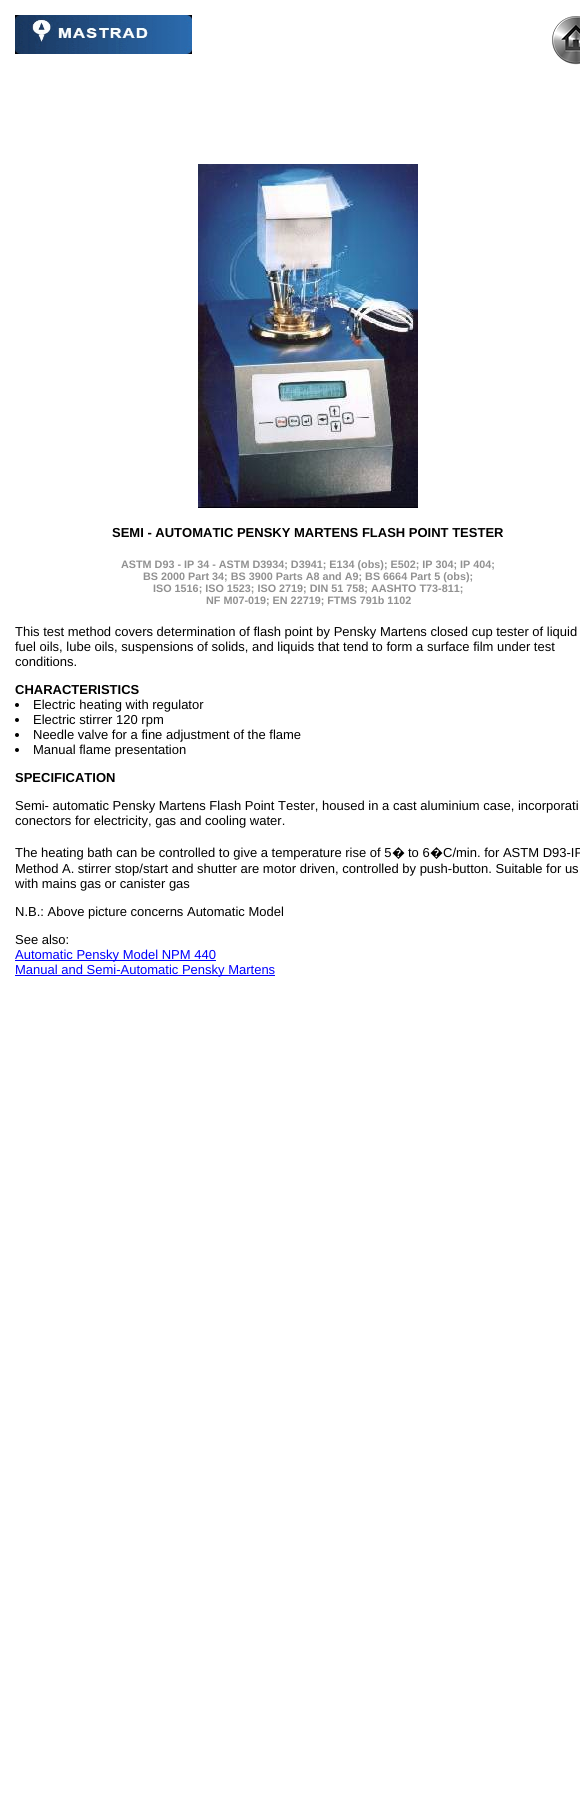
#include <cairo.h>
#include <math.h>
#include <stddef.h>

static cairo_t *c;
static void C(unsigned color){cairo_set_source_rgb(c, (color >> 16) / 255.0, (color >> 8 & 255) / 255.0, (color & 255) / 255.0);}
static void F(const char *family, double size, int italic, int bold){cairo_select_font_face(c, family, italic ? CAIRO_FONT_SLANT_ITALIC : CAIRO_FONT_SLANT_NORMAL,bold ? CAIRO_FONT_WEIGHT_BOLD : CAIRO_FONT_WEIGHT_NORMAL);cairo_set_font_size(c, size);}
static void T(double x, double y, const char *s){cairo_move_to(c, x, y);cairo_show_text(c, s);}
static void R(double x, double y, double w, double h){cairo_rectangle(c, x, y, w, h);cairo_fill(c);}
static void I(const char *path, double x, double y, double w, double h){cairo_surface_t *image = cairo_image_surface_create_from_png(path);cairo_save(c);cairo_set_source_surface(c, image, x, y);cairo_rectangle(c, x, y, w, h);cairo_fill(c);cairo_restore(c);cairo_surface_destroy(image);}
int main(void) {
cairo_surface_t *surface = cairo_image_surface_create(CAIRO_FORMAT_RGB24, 580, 1819);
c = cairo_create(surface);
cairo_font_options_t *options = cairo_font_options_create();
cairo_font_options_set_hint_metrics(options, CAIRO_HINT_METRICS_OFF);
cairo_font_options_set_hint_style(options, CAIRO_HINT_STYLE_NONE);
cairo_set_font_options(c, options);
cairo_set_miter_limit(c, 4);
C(0xffffff);
cairo_paint(c);
I("1.png",15,15,177,39);
I("2.png",552,16,28,49);
I("3.png",198,164,220,344);
F("Liberation Sans",13,0,1);
C(0x000000);
T(112,537,"SEMI - AUTOMATIC PENSKY MARTENS FLASH POINT TESTER");
F("Liberation Sans",10.8,0,1);
C(0x919191);
T(121,568,"ASTM D93 - IP 34 - ASTM D3934; D3941; E134 (obs); E502; IP 304; IP 404;");
T(143,580,"BS 2000 Part 34; BS 3900 Parts A8 and A9; BS 6664 Part 5 (obs);");
T(153,592,"ISO 1516; ISO 1523; ISO 2719; DIN 51 758; AASHTO T73-811;");
T(206,604,"NF M07-019; EN 22719; FTMS 791b 1102");
F("Liberation Sans",13,0,0);
C(0x000000);
T(15,636,"This test method covers determination of flash point by Pensky Martens closed cup tester of liquid");
T(15,651,"fuel oils, lube oils, suspensions of solids, and liquids that tend to form a surface film under test");
T(15,666,"conditions.");
F("Liberation Sans",13,0,1);
T(15,694,"CHARACTERISTICS");
cairo_new_path(c);
cairo_arc(c,17,705,2,0,2 * M_PI);
cairo_fill(c);
F("Liberation Sans",13,0,0);
T(33,709,"Electric heating with regulator");
cairo_new_path(c);
cairo_arc(c,17,720,2,0,2 * M_PI);
cairo_fill(c);
T(33,724,"Electric stirrer 120 rpm");
cairo_new_path(c);
cairo_arc(c,17,735,2,0,2 * M_PI);
cairo_fill(c);
T(33,739,"Needle valve for a fine adjustment of the flame");
cairo_new_path(c);
cairo_arc(c,17,750,2,0,2 * M_PI);
cairo_fill(c);
T(33,754,"Manual flame presentation");
F("Liberation Sans",13,0,1);
T(15,782,"SPECIFICATION");
F("Liberation Sans",13,0,0);
T(15,810,"Semi- automatic Pensky Martens Flash Point Tester, housed in a cast aluminium case, incorporati");
T(15,825,"conectors for electricity, gas and cooling water.");
T(15,857,"The heating bath can be controlled to give a temperature rise of 5");
F("Noto Sans",13,0,0);
T(392,857,"�");
F("Liberation Sans",13,0,0);
T(408,857,"to 6");
F("Noto Sans",13,0,0);
T(430,857,"�");
F("Liberation Sans",13,0,0);
T(443,857,"C/min. for ASTM D93-IP");
T(15,873,"Method A. stirrer stop/start and shutter are motor driven, controlled by push-button. Suitable for us");
T(15,888,"with mains gas or canister gas");
T(15,916,"N.B.: Above picture concerns Automatic Model");
T(15,944,"See also:");
C(0x0000ff);
R(15,960,201,1);
T(15,959,"Automatic Pensky Model NPM 440");
R(15,975,260,1);
T(15,974,"Manual and Semi-Automatic Pensky Martens");
cairo_surface_write_to_png(surface, "o.png");
cairo_font_options_destroy(options);
cairo_destroy(c);
cairo_surface_destroy(surface);
return 0;
}
